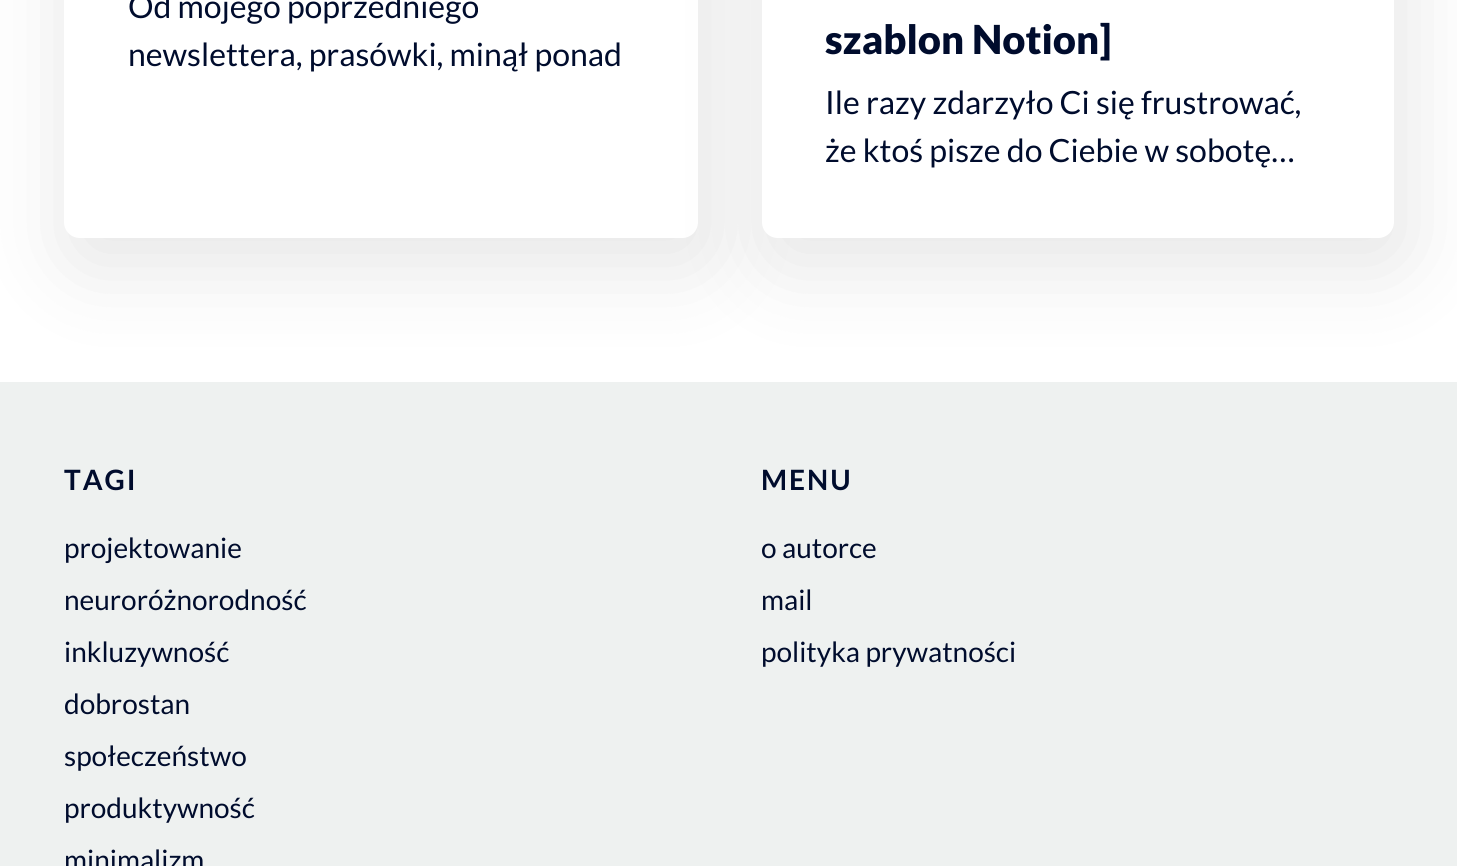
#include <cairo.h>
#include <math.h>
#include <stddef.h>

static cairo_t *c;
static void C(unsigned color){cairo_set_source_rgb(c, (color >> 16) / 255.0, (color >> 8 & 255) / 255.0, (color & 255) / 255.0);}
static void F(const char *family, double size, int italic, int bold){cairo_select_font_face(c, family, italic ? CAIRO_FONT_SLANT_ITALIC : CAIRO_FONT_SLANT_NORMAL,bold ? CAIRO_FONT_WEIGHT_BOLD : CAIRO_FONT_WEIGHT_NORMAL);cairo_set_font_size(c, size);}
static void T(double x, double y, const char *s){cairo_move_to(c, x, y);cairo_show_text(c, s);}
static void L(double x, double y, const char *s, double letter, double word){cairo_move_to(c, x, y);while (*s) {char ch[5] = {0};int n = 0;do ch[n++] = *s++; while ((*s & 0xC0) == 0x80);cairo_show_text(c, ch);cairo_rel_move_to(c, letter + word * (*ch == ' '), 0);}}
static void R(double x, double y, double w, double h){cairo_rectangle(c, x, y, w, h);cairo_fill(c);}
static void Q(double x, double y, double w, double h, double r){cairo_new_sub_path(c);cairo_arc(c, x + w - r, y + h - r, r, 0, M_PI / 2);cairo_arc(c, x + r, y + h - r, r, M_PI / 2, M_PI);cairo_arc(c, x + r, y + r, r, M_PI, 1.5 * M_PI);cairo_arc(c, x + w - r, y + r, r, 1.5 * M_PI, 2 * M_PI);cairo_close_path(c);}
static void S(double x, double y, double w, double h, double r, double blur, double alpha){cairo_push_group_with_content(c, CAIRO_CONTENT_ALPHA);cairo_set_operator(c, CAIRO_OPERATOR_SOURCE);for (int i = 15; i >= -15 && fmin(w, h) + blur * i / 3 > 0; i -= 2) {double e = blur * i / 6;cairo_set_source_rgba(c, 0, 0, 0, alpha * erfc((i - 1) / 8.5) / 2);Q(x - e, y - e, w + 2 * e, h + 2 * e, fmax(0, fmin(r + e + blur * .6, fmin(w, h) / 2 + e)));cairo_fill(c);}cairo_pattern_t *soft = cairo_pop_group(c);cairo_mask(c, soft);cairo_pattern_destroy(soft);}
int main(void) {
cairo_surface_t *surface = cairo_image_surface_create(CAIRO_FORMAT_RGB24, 1457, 866);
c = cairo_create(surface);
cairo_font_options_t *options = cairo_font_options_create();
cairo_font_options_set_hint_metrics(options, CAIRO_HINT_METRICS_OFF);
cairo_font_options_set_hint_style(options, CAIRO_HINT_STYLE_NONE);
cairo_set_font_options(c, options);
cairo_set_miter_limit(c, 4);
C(0xffffff);
cairo_paint(c);
C(0xeef1f0);
R(0,382,1457,484);
C(0x000000);
S(60,-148,658,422,28,40,.09);
C(0xffffff);
cairo_new_path(c);
cairo_move_to(c,64,-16);
cairo_line_to(c,698,-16);
cairo_line_to(c,698,222);
cairo_curve_to(c,698,231,691,238,682,238);
cairo_line_to(c,80,238);
cairo_curve_to(c,71,238,64,231,64,222);
cairo_close_path(c);
cairo_fill(c);
F("Lato",32,0,0);
C(0x000c2d);
T(128,18,"Od mojego poprzedniego");
T(128,66,"newslettera, prasówki, minął ponad");
C(0x000000);
S(758,-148,656,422,28,40,.09);
C(0xffffff);
cairo_new_path(c);
cairo_move_to(c,762,-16);
cairo_line_to(c,1394,-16);
cairo_line_to(c,1394,222);
cairo_curve_to(c,1394,231,1387,238,1378,238);
cairo_line_to(c,778,238);
cairo_curve_to(c,769,238,762,231,762,222);
cairo_close_path(c);
cairo_fill(c);
F("Lato Black",40,0,0);
C(0x000c2d);
T(825,54,"szablon Notion]");
F("Lato",32,0,0);
T(825,114,"Ile razy zdarzyło Ci się frustrować,");
T(825,162,"że ktoś pisze do Ciebie w sobotę…");
F("Lato",28,0,1);
L(64,490,"TAGI",2,0);
F("Lato",28,0,0);
T(64,558,"projektowanie");
T(64,610,"neuroróżnorodność");
T(64,662,"inkluzywność");
T(64,714,"dobrostan");
T(64,766,"społeczeństwo");
T(64,818,"produktywność");
T(64,870,"minimalizm");
F("Lato",28,0,1);
L(761,490,"MENU",2,0);
F("Lato",28,0,0);
T(761,558,"o autorce");
T(761,610,"mail");
T(761,662,"polityka prywatności");
cairo_surface_write_to_png(surface, "o.png");
cairo_font_options_destroy(options);
cairo_destroy(c);
cairo_surface_destroy(surface);
return 0;
}
